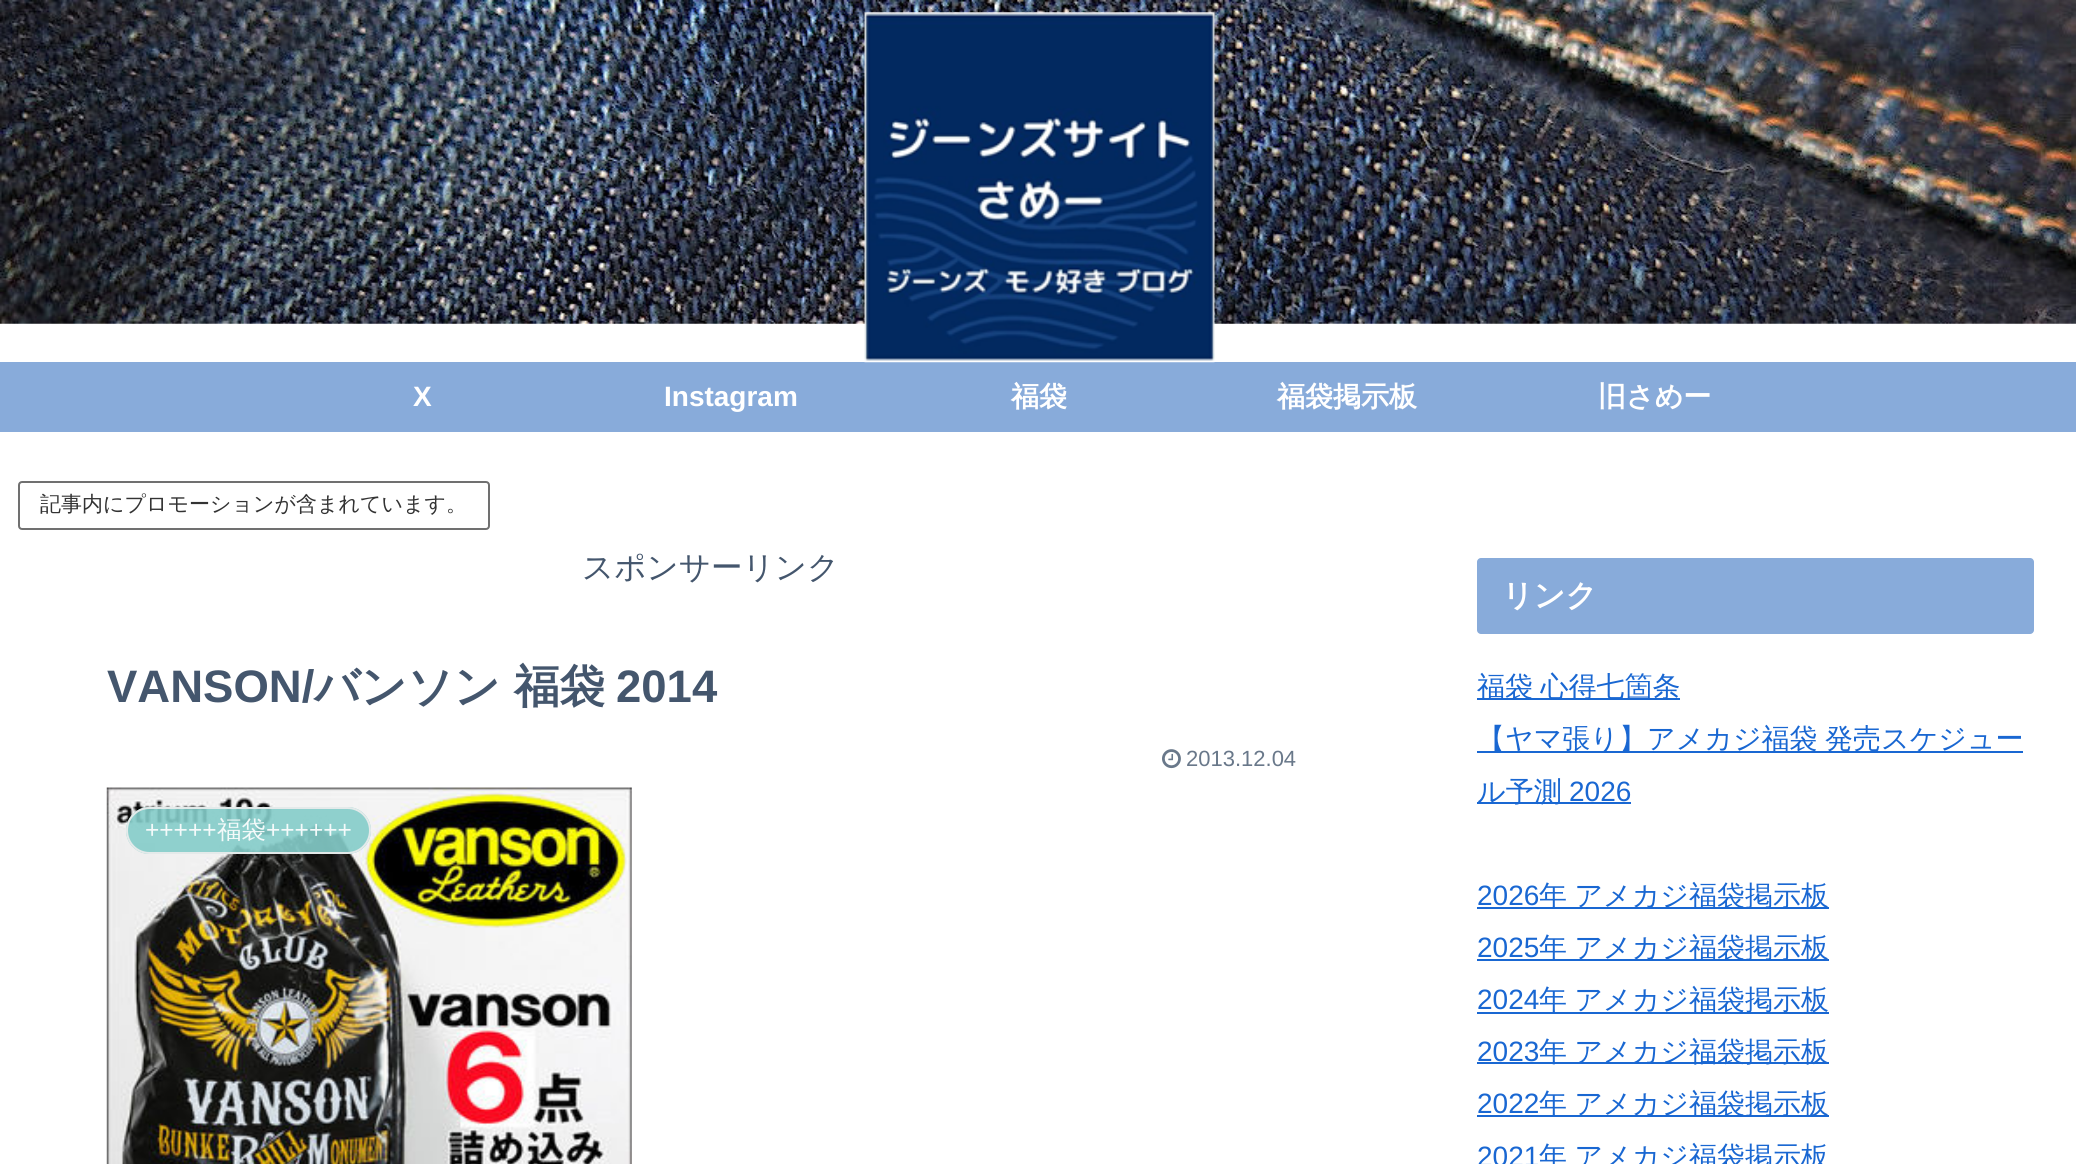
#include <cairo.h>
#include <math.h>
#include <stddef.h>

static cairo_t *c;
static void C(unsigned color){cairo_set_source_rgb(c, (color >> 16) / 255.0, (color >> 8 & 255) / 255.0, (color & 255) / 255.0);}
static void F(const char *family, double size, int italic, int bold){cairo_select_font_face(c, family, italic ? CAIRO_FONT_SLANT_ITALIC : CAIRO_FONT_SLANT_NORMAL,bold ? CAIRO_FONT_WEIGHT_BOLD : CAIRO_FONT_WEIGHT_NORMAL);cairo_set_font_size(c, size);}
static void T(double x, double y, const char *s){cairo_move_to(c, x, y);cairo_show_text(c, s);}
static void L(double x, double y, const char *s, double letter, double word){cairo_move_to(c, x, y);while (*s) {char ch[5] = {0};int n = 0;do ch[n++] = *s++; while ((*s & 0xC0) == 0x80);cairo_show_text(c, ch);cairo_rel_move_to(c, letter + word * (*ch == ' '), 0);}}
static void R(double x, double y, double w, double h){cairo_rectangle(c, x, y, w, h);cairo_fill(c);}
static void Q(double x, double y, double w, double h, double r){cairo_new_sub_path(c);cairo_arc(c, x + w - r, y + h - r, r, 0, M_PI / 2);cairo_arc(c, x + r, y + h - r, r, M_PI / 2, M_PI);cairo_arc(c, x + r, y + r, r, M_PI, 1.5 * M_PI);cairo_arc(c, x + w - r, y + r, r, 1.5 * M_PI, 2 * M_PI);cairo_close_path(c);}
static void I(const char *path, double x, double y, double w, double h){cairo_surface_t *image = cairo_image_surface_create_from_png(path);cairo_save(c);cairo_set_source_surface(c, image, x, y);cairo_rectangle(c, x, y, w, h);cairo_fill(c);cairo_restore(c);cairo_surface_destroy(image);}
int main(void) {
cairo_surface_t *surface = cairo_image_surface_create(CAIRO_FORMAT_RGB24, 2076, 1164);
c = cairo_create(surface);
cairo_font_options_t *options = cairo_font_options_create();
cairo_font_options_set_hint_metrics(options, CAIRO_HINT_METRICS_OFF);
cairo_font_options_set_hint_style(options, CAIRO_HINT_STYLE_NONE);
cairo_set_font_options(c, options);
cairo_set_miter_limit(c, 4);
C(0xffffff);
cairo_paint(c);
I("1.png",0,0,2076,324);
C(0x88abda);
R(0,362,2076,70);
I("2.png",864,12,351,351);
F("Liberation Sans",28,0,1);
C(0xffffff);
T(413,406,"X");
T(664,406,"Instagram");
F("WenQuanYi Zen Hei",28,0,1);
T(1011,406,"福袋");
T(1277,406,"福袋掲示板");
T(1598,406,"旧さめー");
Q(19,482,470,47,3);
C(0x707070);
cairo_stroke(c);
F("WenQuanYi Zen Hei Medium",21,0,0);
C(0x333333);
T(40,511,"記事内にプロモーションが含まれています。");
F("WenQuanYi Zen Hei Medium",31.5,0,0);
C(0x44566d);
T(582,578,"スポンサーリンク");
F("Liberation Sans",45.5,0,1);
T(107,702,"VANSON/");
F("WenQuanYi Zen Hei",45.5,0,1);
T(314,702,"バンソン 福袋");
F("Liberation Sans",45.5,0,1);
T(616,702,"2014");
I("3.png",1162,749,19,20);
F("Liberation Sans",22,0,0);
C(0x69788a);
T(1186,766,"2013.12.04");
I("4.png",106,787,526,377);
cairo_set_source_rgba(c,0.518,0.8,0.788,0.9);
Q(126,807,245,47,23.5);
cairo_fill(c);
Q(127,808,243,45,22.5);
cairo_set_source_rgba(c,0.933,0.933,0.933,0.9);
cairo_stroke(c);
F("Liberation Sans",24.5,0,0);
C(0xf4fafa);
T(145,838,"+++++");
F("WenQuanYi Zen Hei Medium",24.5,0,0);
T(217,838,"福袋");
F("Liberation Sans",24.5,0,0);
T(266,838,"++++++");
C(0x88abda);
Q(1477,558,557,76,4);
cairo_fill(c);
F("WenQuanYi Zen Hei",31,0,1);
C(0xffffff);
T(1502,606,"リンク");
C(0x1967d2);
R(1477,698,203,2);
F("WenQuanYi Zen Hei Medium",28,0,0);
L(1477,696,"福袋 心得七箇条",0,-1);
R(1477,751,546,2);
L(1477,748,"【ヤマ張り】アメカジ福袋 発売スケジュー",0,-1);
R(1477,802,154,2);
T(1477,801,"ル予測");
F("Liberation Sans",28,0,0);
T(1569,801,"2026");
T(1477,905,"2026");
R(1477,907,352,2);
F("WenQuanYi Zen Hei Medium",28,0,0);
L(1539,905,"年 アメカジ福袋掲示板",0,-1);
F("Liberation Sans",28,0,0);
T(1477,957,"2025");
R(1477,959,352,2);
F("WenQuanYi Zen Hei Medium",28,0,0);
L(1539,957,"年 アメカジ福袋掲示板",0,-1);
F("Liberation Sans",28,0,0);
T(1477,1009,"2024");
R(1477,1012,352,2);
F("WenQuanYi Zen Hei Medium",28,0,0);
L(1539,1009,"年 アメカジ福袋掲示板",0,-1);
F("Liberation Sans",28,0,0);
T(1477,1061,"2023");
R(1477,1062,352,2);
F("WenQuanYi Zen Hei Medium",28,0,0);
L(1539,1061,"年 アメカジ福袋掲示板",0,-1);
F("Liberation Sans",28,0,0);
T(1477,1113,"2022");
R(1477,1115,352,2);
F("WenQuanYi Zen Hei Medium",28,0,0);
L(1539,1113,"年 アメカジ福袋掲示板",0,-1);
F("Liberation Sans",28,0,0);
T(1477,1166,"2021");
F("WenQuanYi Zen Hei Medium",28,0,0);
L(1539,1166,"年 アメカジ福袋掲示板",0,-1);
cairo_surface_write_to_png(surface, "o.png");
cairo_font_options_destroy(options);
cairo_destroy(c);
cairo_surface_destroy(surface);
return 0;
}
